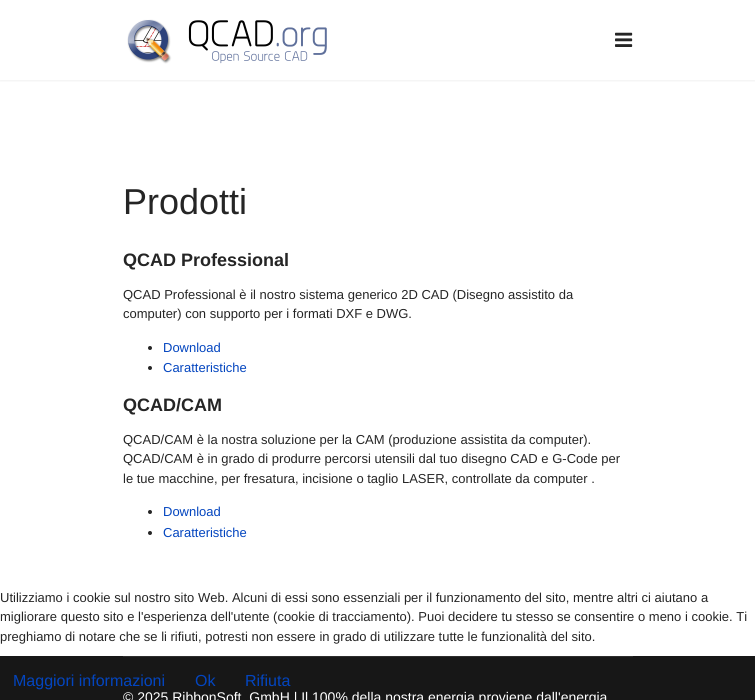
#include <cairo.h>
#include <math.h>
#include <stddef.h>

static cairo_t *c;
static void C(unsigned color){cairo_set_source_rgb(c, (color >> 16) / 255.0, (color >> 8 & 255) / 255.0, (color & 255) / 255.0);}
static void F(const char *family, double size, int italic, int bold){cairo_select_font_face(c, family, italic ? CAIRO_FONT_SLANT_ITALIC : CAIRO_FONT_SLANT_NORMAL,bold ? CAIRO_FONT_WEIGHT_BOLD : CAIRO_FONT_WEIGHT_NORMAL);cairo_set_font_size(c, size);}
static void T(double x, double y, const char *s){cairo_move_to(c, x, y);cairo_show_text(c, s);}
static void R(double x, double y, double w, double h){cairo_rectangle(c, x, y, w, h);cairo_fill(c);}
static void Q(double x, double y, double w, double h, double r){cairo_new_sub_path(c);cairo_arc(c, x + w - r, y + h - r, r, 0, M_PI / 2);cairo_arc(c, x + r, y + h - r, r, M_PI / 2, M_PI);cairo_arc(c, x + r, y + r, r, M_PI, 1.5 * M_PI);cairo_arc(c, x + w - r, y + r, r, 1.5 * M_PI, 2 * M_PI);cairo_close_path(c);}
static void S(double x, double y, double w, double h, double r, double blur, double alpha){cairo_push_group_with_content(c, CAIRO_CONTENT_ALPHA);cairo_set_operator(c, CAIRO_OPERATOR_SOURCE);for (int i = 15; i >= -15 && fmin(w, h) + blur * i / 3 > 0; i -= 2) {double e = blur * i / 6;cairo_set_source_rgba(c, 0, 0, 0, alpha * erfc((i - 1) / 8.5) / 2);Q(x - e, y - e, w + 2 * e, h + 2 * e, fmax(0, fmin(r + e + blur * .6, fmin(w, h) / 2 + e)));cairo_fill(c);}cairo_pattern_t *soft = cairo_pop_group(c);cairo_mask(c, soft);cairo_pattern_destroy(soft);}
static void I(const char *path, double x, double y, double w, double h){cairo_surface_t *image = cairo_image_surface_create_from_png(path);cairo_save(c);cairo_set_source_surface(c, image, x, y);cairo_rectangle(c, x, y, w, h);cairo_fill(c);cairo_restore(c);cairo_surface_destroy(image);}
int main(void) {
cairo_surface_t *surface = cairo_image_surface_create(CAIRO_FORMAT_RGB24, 755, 700);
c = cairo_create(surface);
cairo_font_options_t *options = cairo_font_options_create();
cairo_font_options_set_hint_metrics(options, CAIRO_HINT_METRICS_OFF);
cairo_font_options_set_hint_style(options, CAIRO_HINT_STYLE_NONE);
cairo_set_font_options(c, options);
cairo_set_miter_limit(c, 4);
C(0xffffff);
cairo_paint(c);
cairo_save(c);
cairo_rectangle(c,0,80,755,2);
cairo_clip(c);
C(0x000000);
S(0,0,755,80,0,2,.1);
cairo_restore(c);
I("1.png",127,19,200,45);
I("2.png",615,32,18,15);
F("Liberation Sans",36,0,0);
C(0x252525);
T(123,214,"Prodotti");
F("Liberation Sans",18,0,1);
T(123,266,"QCAD Professional");
F("Liberation Sans",13,0,0);
T(123,299,"QCAD Professional è il nostro sistema generico 2D CAD (Disegno assistito da");
T(123,318,"computer) con supporto per i formati DXF e DWG.");
cairo_new_path(c);
cairo_arc(c,150,348,2,0,2 * M_PI);
cairo_fill(c);
C(0x0345bf);
T(163,352,"Download");
C(0x252525);
cairo_new_path(c);
cairo_arc(c,150,368,2,0,2 * M_PI);
cairo_fill(c);
C(0x0345bf);
T(163,372,"Caratteristiche");
F("Liberation Sans",18,0,1);
C(0x252525);
T(123,411,"QCAD/CAM");
F("Liberation Sans",13,0,0);
T(123,444,"QCAD/CAM è la nostra soluzione per la CAM (produzione assistita da computer).");
T(123,463,"QCAD/CAM è in grado di produrre percorsi utensili dal tuo disegno CAD e G-Code per");
T(123,483,"le tue macchine, per fresatura, incisione o taglio LASER, controllate da computer .");
cairo_new_path(c);
cairo_arc(c,150,512,2,0,2 * M_PI);
cairo_fill(c);
C(0x0345bf);
T(163,516,"Download");
C(0x252525);
cairo_new_path(c);
cairo_arc(c,150,533,2,0,2 * M_PI);
cairo_fill(c);
C(0x0345bf);
T(163,537,"Caratteristiche");
C(0x171717);
R(0,656,755,44);
C(0x2e2e2e);
R(123,656,510,1);
F("Liberation Sans",14,0,0);
C(0xffffff);
T(123,702,"© 2025 RibbonSoft, GmbH | Il 100% della nostra energia proviene dall'energia");
F("Liberation Sans",13,0,0);
C(0x252525);
T(0,602,"Utilizziamo i cookie sul nostro sito Web. Alcuni di essi sono essenziali per il funzionamento del sito, mentre altri ci aiutano a");
T(0,621,"migliorare questo sito e l'esperienza dell'utente (cookie di tracciamento). Puoi decidere tu stesso se consentire o meno i cookie. Ti");
T(0,641,"preghiamo di notare che se li rifiuti, potresti non essere in grado di utilizzare tutte le funzionalità del sito.");
F("Liberation Sans",16,0,0);
C(0x0345bf);
T(13,686,"Maggiori informazioni");
T(195,686,"Ok");
T(245,686,"Rifiuta");
cairo_surface_write_to_png(surface, "o.png");
cairo_font_options_destroy(options);
cairo_destroy(c);
cairo_surface_destroy(surface);
return 0;
}
